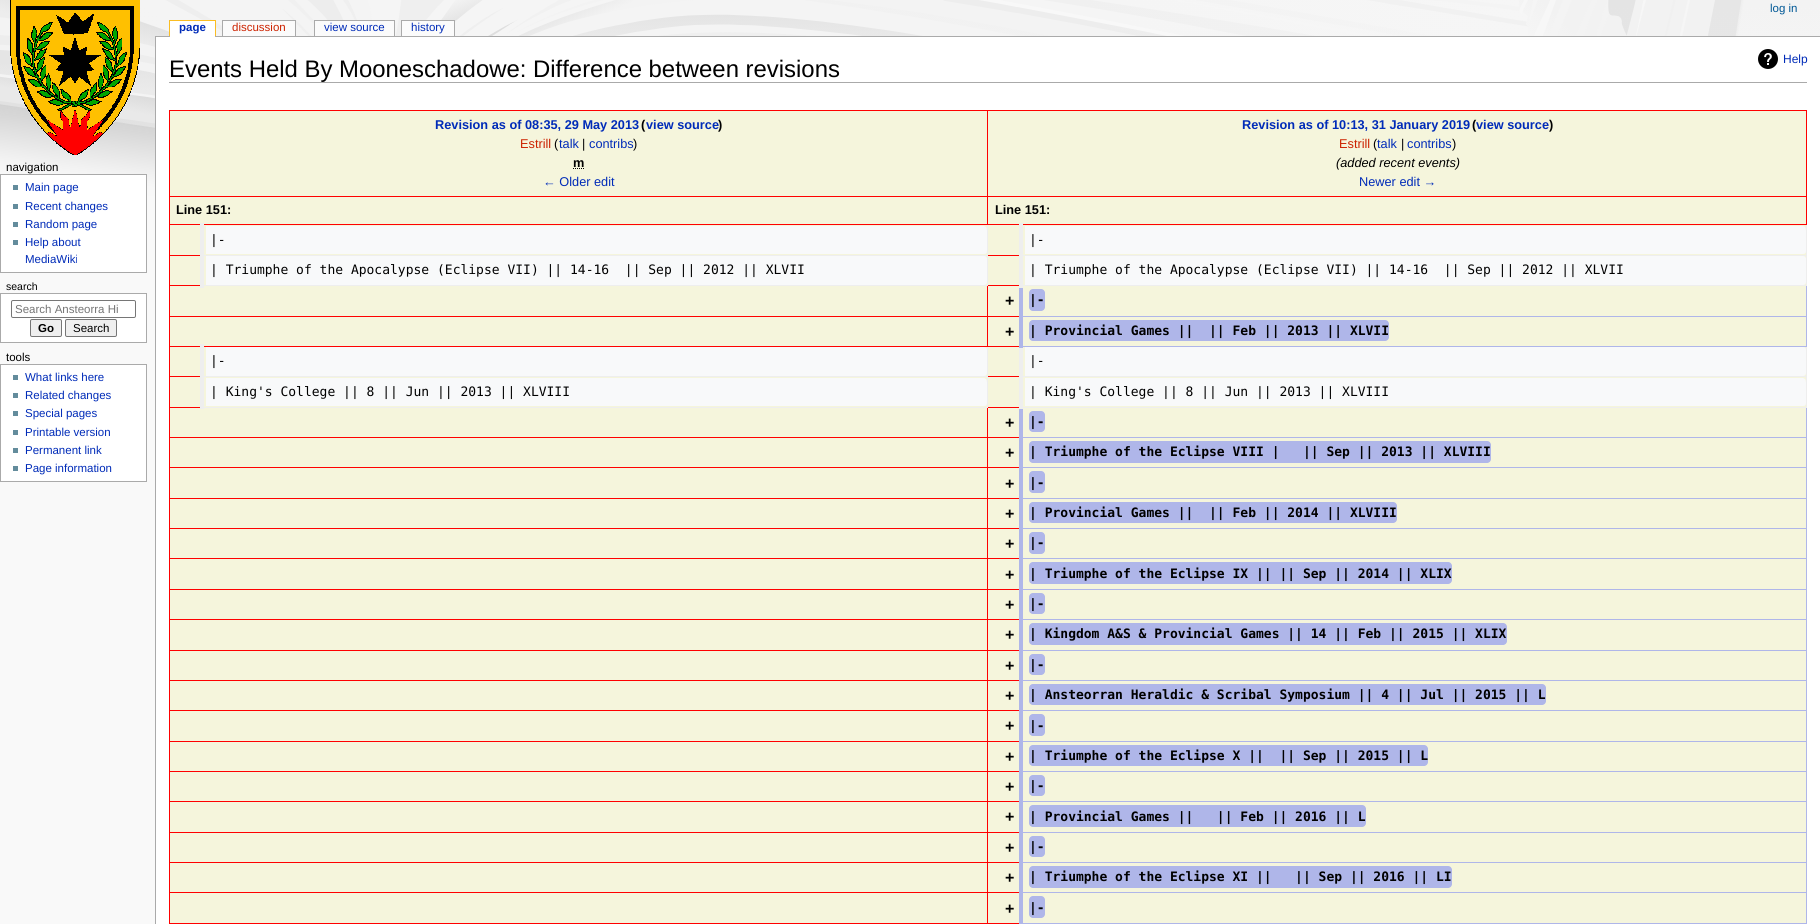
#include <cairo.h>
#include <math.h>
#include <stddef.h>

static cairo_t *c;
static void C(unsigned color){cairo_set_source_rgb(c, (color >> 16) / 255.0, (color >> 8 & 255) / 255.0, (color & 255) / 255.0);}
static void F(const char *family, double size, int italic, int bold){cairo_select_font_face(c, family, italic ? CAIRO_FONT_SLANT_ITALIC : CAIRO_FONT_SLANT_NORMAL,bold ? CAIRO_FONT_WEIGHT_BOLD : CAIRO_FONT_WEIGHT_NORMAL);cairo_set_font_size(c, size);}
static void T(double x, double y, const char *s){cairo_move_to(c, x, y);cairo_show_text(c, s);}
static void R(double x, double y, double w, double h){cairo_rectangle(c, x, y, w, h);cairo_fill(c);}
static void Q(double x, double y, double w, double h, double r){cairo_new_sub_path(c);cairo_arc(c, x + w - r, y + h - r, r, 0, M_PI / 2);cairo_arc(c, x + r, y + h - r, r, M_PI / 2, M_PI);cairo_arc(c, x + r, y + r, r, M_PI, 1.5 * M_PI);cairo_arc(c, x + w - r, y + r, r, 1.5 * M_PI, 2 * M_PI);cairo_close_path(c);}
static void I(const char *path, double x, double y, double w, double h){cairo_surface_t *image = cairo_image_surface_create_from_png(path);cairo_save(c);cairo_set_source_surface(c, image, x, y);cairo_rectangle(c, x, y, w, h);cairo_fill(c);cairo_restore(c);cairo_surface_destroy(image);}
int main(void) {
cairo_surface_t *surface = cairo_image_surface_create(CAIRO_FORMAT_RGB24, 1820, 924);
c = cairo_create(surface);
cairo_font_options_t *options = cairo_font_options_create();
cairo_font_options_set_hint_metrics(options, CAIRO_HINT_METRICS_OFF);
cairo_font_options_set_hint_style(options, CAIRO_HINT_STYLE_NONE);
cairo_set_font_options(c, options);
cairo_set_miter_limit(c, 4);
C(0xf9f9f9);
cairo_paint(c);
I("1.png",0,0,1820,210);
I("2.png",10,0,130,155);
F("Liberation Sans",11.5,0,0);
C(0x005896);
T(1770,12,"log in");
C(0xaaaaaa);
R(155,36,1665,1);
C(0xffffff);
R(170,21,45,16);
F("Liberation Sans",11.5,0,1);
C(0x002bb8);
T(179,31,"page");
C(0xfabd23);
R(169,20,47,1);
R(215,20,1,16);
R(169,20,1,16);
C(0xfbfbfb);
R(223,21,72,15);
F("Liberation Sans",11.5,0,0);
C(0xcc2200);
T(232,31,"discussion");
C(0xaaaaaa);
R(222,20,74,1);
R(295,20,1,16);
R(222,20,1,16);
C(0xfbfbfb);
R(315,21,79,15);
C(0x002bb8);
T(324,31,"view source");
C(0xaaaaaa);
R(314,20,81,1);
R(394,20,1,16);
R(314,20,1,16);
C(0xfbfbfb);
R(402,21,52,15);
C(0x002bb8);
T(411,31,"history");
C(0xaaaaaa);
R(401,20,54,1);
R(454,20,1,16);
R(401,20,1,16);
C(0x000000);
T(6,171,"navigation");
C(0xffffff);
cairo_rectangle(c,.5,174.5,146,98);
cairo_fill_preserve(c);
C(0xaaaaaa);
cairo_set_line_width(c,1);
cairo_stroke(c);
C(0x638c9c);
R(13,185,5,5);
C(0x002bb8);
T(25,191,"Main page");
C(0x638c9c);
R(13,204,5,5);
C(0x002bb8);
T(25,210,"Recent changes");
C(0x638c9c);
R(13,222,5,5);
C(0x002bb8);
T(25,228,"Random page");
C(0x638c9c);
R(13,240,5,5);
C(0x002bb8);
T(25,246,"Help about");
T(25,263,"MediaWiki");
F("Liberation Sans",10.5,0,0);
C(0x000000);
T(6,290,"search");
C(0xffffff);
cairo_rectangle(c,.5,293.5,146,49);
cairo_fill_preserve(c);
C(0xaaaaaa);
cairo_stroke(c);
Q(11.5,300.5,124,17,1.5);
C(0x767676);
cairo_stroke(c);
F("Liberation Sans",11.5,0,0);
C(0x757575);
T(15,313,"Search Ansteorra Hi");
C(0xefefef);
Q(30.5,319.5,31,17,1.5);
cairo_fill_preserve(c);
C(0x767676);
cairo_stroke(c);
F("Liberation Sans",11.5,0,1);
C(0x000000);
T(38,332,"Go");
C(0xefefef);
Q(65.5,319.5,51,17,1.5);
cairo_fill_preserve(c);
C(0x767676);
cairo_stroke(c);
F("Liberation Sans",11.5,0,0);
C(0x000000);
T(73,332,"Search");
T(6,361,"tools");
C(0xffffff);
cairo_rectangle(c,.5,364.5,146,117);
cairo_fill_preserve(c);
C(0xaaaaaa);
cairo_stroke(c);
C(0x638c9c);
R(13,375,5,5);
C(0x002bb8);
T(25,381,"What links here");
C(0x638c9c);
R(13,393,5,5);
C(0x002bb8);
T(25,399,"Related changes");
C(0x638c9c);
R(13,411,5,5);
C(0x002bb8);
T(25,417,"Special pages");
C(0x638c9c);
R(13,430,5,5);
C(0x002bb8);
T(25,436,"Printable version");
C(0x638c9c);
R(13,448,5,5);
C(0x002bb8);
T(25,454,"Permanent link");
C(0x638c9c);
R(13,466,5,5);
C(0x002bb8);
T(25,472,"Page information");
C(0xffffff);
R(156,37,1664,887);
C(0xaaaaaa);
R(155,36,1,888);
R(169,82,1638,1);
F("Liberation Sans",23.9,0,0);
C(0x000000);
T(169,77,"Events Held By Mooneschadowe: Difference between revisions");
I("3.png",1758,49,20,20);
F("Liberation Sans",12,0,0);
C(0x002bb8);
T(1783,63,"Help");
C(0xf5f5dc);
R(170,111,1636,812);
C(0xff0000);
R(987,110,820,1);
R(987,196,820,1);
C(0xf8f9fa);
cairo_new_path(c);
cairo_move_to(c,1025,226);
cairo_line_to(c,1803,226);
cairo_line_to(c,1805,227);
cairo_curve_to(c,1807,228,1806,247,1806,251);
cairo_curve_to(c,1806,253,1805,254,1803,254);
cairo_line_to(c,1025,254);
cairo_close_path(c);
cairo_fill(c);
cairo_new_path(c);
cairo_move_to(c,1025,256);
cairo_line_to(c,1803,256);
cairo_curve_to(c,1808,256,1806,264,1806,267);
cairo_line_to(c,1806,278);
cairo_curve_to(c,1806,280,1807,285,1803,285);
cairo_line_to(c,1025,285);
cairo_close_path(c);
cairo_fill(c);
cairo_new_path(c);
cairo_move_to(c,1025,347);
cairo_line_to(c,1803,347);
cairo_curve_to(c,1808,347,1806,355,1806,358);
cairo_line_to(c,1806,369);
cairo_curve_to(c,1806,371,1807,376,1803,376);
cairo_line_to(c,1025,376);
cairo_close_path(c);
cairo_fill(c);
cairo_new_path(c);
cairo_move_to(c,1025,378);
cairo_line_to(c,1803,378);
cairo_line_to(c,1805,379);
cairo_curve_to(c,1807,380,1806,399,1806,403);
cairo_curve_to(c,1806,405,1805,406,1803,406);
cairo_line_to(c,1025,406);
cairo_close_path(c);
cairo_fill(c);
C(0xafb6e9);
R(1806,407,1,517);
C(0xeeeeee);
R(1806,346,1,62);
C(0xafb6e9);
R(1806,285,1,62);
C(0xeeeeee);
R(1806,224,1,62);
C(0xff0000);
R(1806,196,1,29);
C(0xf8f9fa);
cairo_new_path(c);
cairo_move_to(c,206,226);
cairo_line_to(c,984,226);
cairo_line_to(c,986,227);
cairo_curve_to(c,988,228,987,247,987,251);
cairo_curve_to(c,987,253,986,254,984,254);
cairo_line_to(c,206,254);
cairo_close_path(c);
cairo_fill(c);
C(0xeeeeee);
R(1020,255,787,1);
C(0xf8f9fa);
cairo_new_path(c);
cairo_move_to(c,206,256);
cairo_line_to(c,984,256);
cairo_curve_to(c,989,256,987,264,987,267);
cairo_line_to(c,987,278);
cairo_curve_to(c,987,280,988,285,984,285);
cairo_line_to(c,206,285);
cairo_close_path(c);
cairo_fill(c);
C(0xff0000);
R(987,285,34,1);
R(987,316,34,1);
C(0xafb6e9);
R(1020,346,787,1);
C(0xf8f9fa);
cairo_new_path(c);
cairo_move_to(c,206,347);
cairo_line_to(c,984,347);
cairo_curve_to(c,989,347,987,355,987,358);
cairo_line_to(c,987,369);
cairo_curve_to(c,987,371,988,376,984,376);
cairo_line_to(c,206,376);
cairo_close_path(c);
cairo_fill(c);
C(0xeeeeee);
R(1020,376,787,1);
C(0xf8f9fa);
cairo_new_path(c);
cairo_move_to(c,206,378);
cairo_line_to(c,984,378);
cairo_line_to(c,986,379);
cairo_curve_to(c,988,380,987,399,987,403);
cairo_curve_to(c,987,405,986,406,984,406);
cairo_line_to(c,206,406);
cairo_close_path(c);
cairo_fill(c);
C(0xff0000);
R(987,407,34,1);
R(987,437,34,1);
R(987,467,34,1);
R(987,498,34,1);
R(987,528,34,1);
R(987,558,34,1);
R(987,589,34,1);
R(987,619,34,1);
R(987,650,34,1);
R(987,680,34,1);
R(987,710,34,1);
R(987,741,34,1);
R(987,771,34,1);
R(987,801,34,1);
R(987,832,34,1);
R(987,862,34,1);
R(987,892,34,1);
R(169,923,852,1);
R(987,892,1,32);
R(169,892,819,1);
R(987,862,1,31);
R(169,862,819,1);
R(987,832,1,31);
R(169,832,819,1);
R(987,801,1,32);
R(169,801,819,1);
R(987,771,1,31);
R(169,771,819,1);
R(987,741,1,31);
R(169,741,819,1);
R(987,710,1,32);
R(169,710,819,1);
R(987,680,1,31);
R(169,680,819,1);
R(987,650,1,31);
R(169,650,819,1);
R(987,619,1,32);
R(169,619,819,1);
R(987,589,1,31);
R(169,589,819,1);
R(987,558,1,32);
R(169,558,819,1);
R(987,528,1,31);
R(169,528,819,1);
R(987,498,1,31);
R(169,498,819,1);
R(987,467,1,32);
R(169,467,819,1);
R(987,437,1,31);
R(169,437,819,1);
R(987,407,1,31);
C(0xeeeeee);
R(987,376,1,32);
C(0xff0000);
R(987,376,34,1);
C(0xeeeeee);
R(987,346,1,31);
C(0xff0000);
R(987,346,34,1);
R(987,316,1,31);
R(169,316,819,1);
R(987,285,1,32);
C(0xeeeeee);
R(987,255,1,31);
C(0xff0000);
R(987,255,34,1);
C(0xeeeeee);
R(987,224,1,32);
C(0xff0000);
R(987,224,820,1);
R(987,196,1,29);
R(169,196,819,1);
R(987,110,1,87);
R(169,110,819,1);
R(169,255,33,1);
R(169,285,31,1);
R(169,376,33,1);
R(169,407,31,1);
R(169,892,1,32);
R(169,862,1,31);
R(169,832,1,31);
R(169,801,1,32);
R(169,771,1,31);
R(169,741,1,31);
R(169,710,1,32);
R(169,680,1,31);
R(169,650,1,31);
R(169,619,1,32);
R(169,589,1,31);
R(169,558,1,32);
R(169,528,1,31);
R(169,498,1,31);
R(169,467,1,32);
R(169,437,1,31);
R(169,407,1,31);
R(169,346,1,62);
R(169,346,819,1);
R(169,316,1,31);
R(169,285,1,32);
R(169,224,1,62);
R(169,224,819,1);
R(169,196,1,29);
R(169,110,1,87);
F("Liberation Sans",12.75,0,1);
C(0x002bb8);
T(435,129,"Revision as of 08:35, 29 May 2013");
C(0x000000);
T(641,129,"(");
C(0x002bb8);
T(646,129,"view source");
C(0x000000);
T(718,129,")");
F("Liberation Sans",12.75,0,0);
C(0xcc2200);
T(520,148,"Estrill");
C(0x000000);
T(554,148,"(");
C(0x002bb8);
T(559,148,"talk");
C(0x000000);
T(582,148,"|");
C(0x002bb8);
T(589,148,"contribs");
C(0x000000);
T(633,148,")");
F("Liberation Sans",12.75,0,1);
T(573,167,"m");
cairo_new_path(c);
cairo_move_to(c,573,168.5);
cairo_line_to(c,584,168.5);
cairo_set_dash(c,(double[]){1,1},2,0);
cairo_stroke(c);
F("Liberation Sans",12.75,0,0);
C(0x002bb8);
T(543,186,"← Older edit");
C(0xff0000);
R(1806,110,1,87);
F("Liberation Sans",12.75,0,1);
C(0x002bb8);
T(1242,129,"Revision as of 10:13, 31 January 2019");
C(0x000000);
T(1472,129,"(");
C(0x002bb8);
T(1476,129,"view source");
C(0x000000);
T(1549,129,")");
F("Liberation Sans",12.75,0,0);
C(0xcc2200);
T(1339,148,"Estrill");
C(0x000000);
T(1373,148,"(");
C(0x002bb8);
T(1377,148,"talk");
C(0x000000);
T(1401,148,"|");
C(0x002bb8);
T(1407,148,"contribs");
C(0x000000);
T(1452,148,")");
F("Liberation Sans",12.75,1,0);
T(1336,167,"(added recent events)");
F("Liberation Sans",12.75,0,0);
C(0x002bb8);
T(1359,186,"Newer edit →");
F("Liberation Sans",12.75,0,1);
C(0x000000);
T(176,214,"Line 151:");
T(995,214,"Line 151:");
C(0xeeeeee);
R(201,255,787,1);
F("DejaVu Sans Mono",13,0,0);
C(0x000000);
T(210,244,"|-");
T(1029,244,"|-");
C(0xeeeeee);
R(201,285,787,1);
R(200,223,4,65);
C(0x000000);
T(210,274,"| Triumphe of the Apocalypse (Eclipse VII) || 14-16  || Sep || 2012 || XLVII");
C(0xeeeeee);
R(1020,285,787,1);
C(0xafb6e9);
R(1020,316,787,1);
C(0xeeeeee);
R(1020,407,787,1);
C(0xafb6e9);
R(1020,437,787,1);
R(1020,467,787,1);
R(1020,498,787,1);
R(1020,528,787,1);
R(1020,558,787,1);
R(1020,589,787,1);
R(1020,619,787,1);
R(1020,650,787,1);
R(1020,680,787,1);
R(1020,710,787,1);
R(1020,741,787,1);
R(1020,771,787,1);
R(1020,801,787,1);
R(1020,832,787,1);
R(1020,862,787,1);
R(1020,892,787,1);
R(1020,923,787,1);
R(1019,405,4,519);
C(0xeeeeee);
R(1019,344,4,65);
C(0xafb6e9);
R(1019,284,4,64);
C(0xeeeeee);
R(1019,223,4,65);
C(0x000000);
T(1029,274,"| Triumphe of the Apocalypse (Eclipse VII) || 14-16  || Sep || 2012 || XLVII");
F("Liberation Sans",16,0,1);
T(1005,306,"+");
C(0xafb6e9);
Q(1029,289,16,22,4);
cairo_fill(c);
F("DejaVu Sans Mono",13,0,1);
C(0x000000);
T(1029,304,"|-");
F("Liberation Sans",16,0,1);
T(1005,337,"+");
C(0xafb6e9);
Q(1029,320,360,21,4);
cairo_fill(c);
F("DejaVu Sans Mono",13,0,1);
C(0x000000);
T(1029,335,"| Provincial Games ||  || Feb || 2013 || XLVII");
C(0xeeeeee);
R(201,376,787,1);
F("DejaVu Sans Mono",13,0,0);
C(0x000000);
T(210,365,"|-");
T(1029,365,"|-");
C(0xeeeeee);
R(201,407,787,1);
R(200,344,4,65);
C(0x000000);
T(210,396,"| King's College || 8 || Jun || 2013 || XLVIII");
T(1029,396,"| King's College || 8 || Jun || 2013 || XLVIII");
F("Liberation Sans",16,0,1);
T(1005,428,"+");
C(0xafb6e9);
Q(1029,411,16,21,4);
cairo_fill(c);
F("DejaVu Sans Mono",13,0,1);
C(0x000000);
T(1029,426,"|-");
F("Liberation Sans",16,0,1);
T(1005,458,"+");
C(0xafb6e9);
Q(1029,441,462,22,4);
cairo_fill(c);
F("DejaVu Sans Mono",13,0,1);
C(0x000000);
T(1029,456,"| Triumphe of the Eclipse VIII |   || Sep || 2013 || XLVIII");
F("Liberation Sans",16,0,1);
T(1005,489,"+");
C(0xafb6e9);
Q(1029,471,16,22,4);
cairo_fill(c);
F("DejaVu Sans Mono",13,0,1);
C(0x000000);
T(1029,487,"|-");
F("Liberation Sans",16,0,1);
T(1005,519,"+");
C(0xafb6e9);
Q(1029,502,368,21,4);
cairo_fill(c);
F("DejaVu Sans Mono",13,0,1);
C(0x000000);
T(1029,517,"| Provincial Games ||  || Feb || 2014 || XLVIII");
F("Liberation Sans",16,0,1);
T(1005,549,"+");
C(0xafb6e9);
Q(1029,532,16,22,4);
cairo_fill(c);
F("DejaVu Sans Mono",13,0,1);
C(0x000000);
T(1029,547,"|-");
F("Liberation Sans",16,0,1);
T(1005,580,"+");
C(0xafb6e9);
Q(1029,562,423,22,4);
cairo_fill(c);
F("DejaVu Sans Mono",13,0,1);
C(0x000000);
T(1029,578,"| Triumphe of the Eclipse IX || || Sep || 2014 || XLIX");
F("Liberation Sans",16,0,1);
T(1005,610,"+");
C(0xafb6e9);
Q(1029,593,16,21,4);
cairo_fill(c);
F("DejaVu Sans Mono",13,0,1);
C(0x000000);
T(1029,608,"|-");
F("Liberation Sans",16,0,1);
T(1005,640,"+");
C(0xafb6e9);
Q(1029,623,478,22,4);
cairo_fill(c);
F("DejaVu Sans Mono",13,0,1);
C(0x000000);
T(1029,638,"| Kingdom A&S & Provincial Games || 14 || Feb || 2015 || XLIX");
F("Liberation Sans",16,0,1);
T(1005,671,"+");
C(0xafb6e9);
Q(1029,654,16,21,4);
cairo_fill(c);
F("DejaVu Sans Mono",13,0,1);
C(0x000000);
T(1029,669,"|-");
F("Liberation Sans",16,0,1);
T(1005,701,"+");
C(0xafb6e9);
Q(1029,684,517,21,4);
cairo_fill(c);
F("DejaVu Sans Mono",13,0,1);
C(0x000000);
T(1029,699,"| Ansteorran Heraldic & Scribal Symposium || 4 || Jul || 2015 || L");
F("Liberation Sans",16,0,1);
T(1005,731,"+");
C(0xafb6e9);
Q(1029,714,16,22,4);
cairo_fill(c);
F("DejaVu Sans Mono",13,0,1);
C(0x000000);
T(1029,730,"|-");
F("Liberation Sans",16,0,1);
T(1005,762,"+");
C(0xafb6e9);
Q(1029,745,399,21,4);
cairo_fill(c);
F("DejaVu Sans Mono",13,0,1);
C(0x000000);
T(1029,760,"| Triumphe of the Eclipse X ||  || Sep || 2015 || L");
F("Liberation Sans",16,0,1);
T(1005,792,"+");
C(0xafb6e9);
Q(1029,775,16,21,4);
cairo_fill(c);
F("DejaVu Sans Mono",13,0,1);
C(0x000000);
T(1029,790,"|-");
F("Liberation Sans",16,0,1);
T(1005,822,"+");
C(0xafb6e9);
Q(1029,805,337,22,4);
cairo_fill(c);
F("DejaVu Sans Mono",13,0,1);
C(0x000000);
T(1029,821,"| Provincial Games ||   || Feb || 2016 || L");
F("Liberation Sans",16,0,1);
T(1005,853,"+");
C(0xafb6e9);
Q(1029,836,16,21,4);
cairo_fill(c);
F("DejaVu Sans Mono",13,0,1);
C(0x000000);
T(1029,851,"|-");
F("Liberation Sans",16,0,1);
T(1005,883,"+");
C(0xafb6e9);
Q(1029,866,423,22,4);
cairo_fill(c);
F("DejaVu Sans Mono",13,0,1);
C(0x000000);
T(1029,881,"| Triumphe of the Eclipse XI ||   || Sep || 2016 || LI");
F("Liberation Sans",16,0,1);
T(1005,914,"+");
C(0xafb6e9);
Q(1029,896,16,22,4);
cairo_fill(c);
F("DejaVu Sans Mono",13,0,1);
C(0x000000);
T(1029,912,"|-");
cairo_surface_write_to_png(surface, "o.png");
cairo_font_options_destroy(options);
cairo_destroy(c);
cairo_surface_destroy(surface);
return 0;
}
